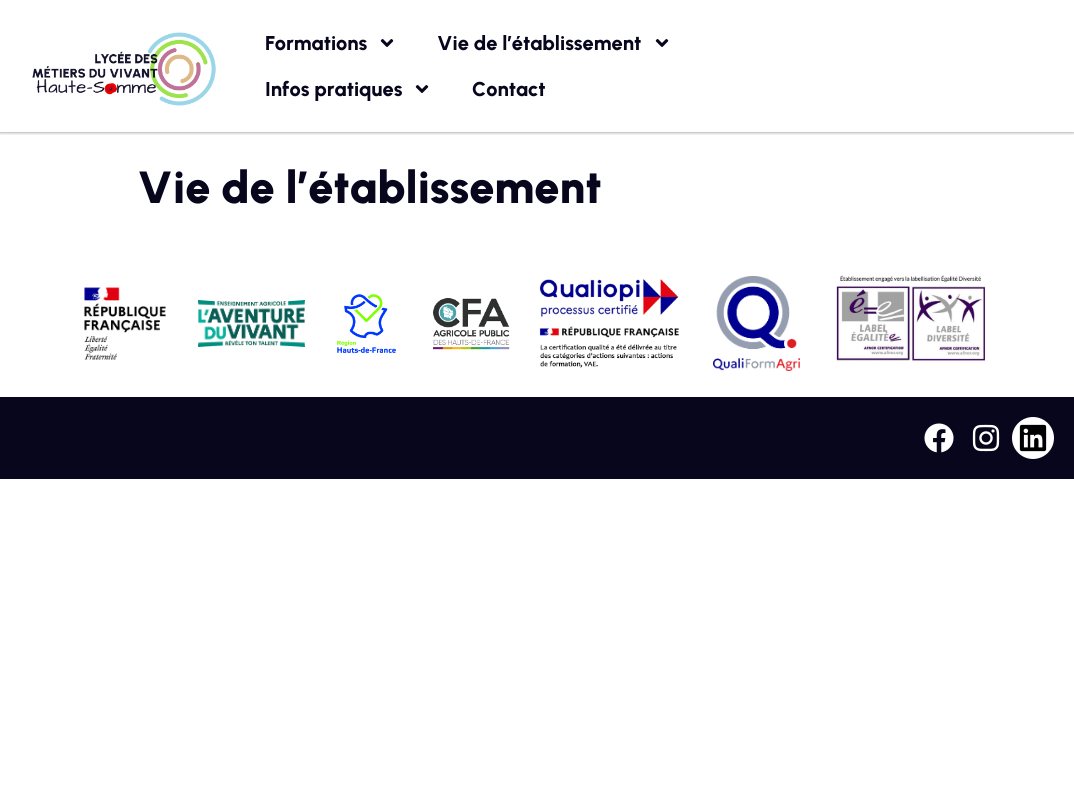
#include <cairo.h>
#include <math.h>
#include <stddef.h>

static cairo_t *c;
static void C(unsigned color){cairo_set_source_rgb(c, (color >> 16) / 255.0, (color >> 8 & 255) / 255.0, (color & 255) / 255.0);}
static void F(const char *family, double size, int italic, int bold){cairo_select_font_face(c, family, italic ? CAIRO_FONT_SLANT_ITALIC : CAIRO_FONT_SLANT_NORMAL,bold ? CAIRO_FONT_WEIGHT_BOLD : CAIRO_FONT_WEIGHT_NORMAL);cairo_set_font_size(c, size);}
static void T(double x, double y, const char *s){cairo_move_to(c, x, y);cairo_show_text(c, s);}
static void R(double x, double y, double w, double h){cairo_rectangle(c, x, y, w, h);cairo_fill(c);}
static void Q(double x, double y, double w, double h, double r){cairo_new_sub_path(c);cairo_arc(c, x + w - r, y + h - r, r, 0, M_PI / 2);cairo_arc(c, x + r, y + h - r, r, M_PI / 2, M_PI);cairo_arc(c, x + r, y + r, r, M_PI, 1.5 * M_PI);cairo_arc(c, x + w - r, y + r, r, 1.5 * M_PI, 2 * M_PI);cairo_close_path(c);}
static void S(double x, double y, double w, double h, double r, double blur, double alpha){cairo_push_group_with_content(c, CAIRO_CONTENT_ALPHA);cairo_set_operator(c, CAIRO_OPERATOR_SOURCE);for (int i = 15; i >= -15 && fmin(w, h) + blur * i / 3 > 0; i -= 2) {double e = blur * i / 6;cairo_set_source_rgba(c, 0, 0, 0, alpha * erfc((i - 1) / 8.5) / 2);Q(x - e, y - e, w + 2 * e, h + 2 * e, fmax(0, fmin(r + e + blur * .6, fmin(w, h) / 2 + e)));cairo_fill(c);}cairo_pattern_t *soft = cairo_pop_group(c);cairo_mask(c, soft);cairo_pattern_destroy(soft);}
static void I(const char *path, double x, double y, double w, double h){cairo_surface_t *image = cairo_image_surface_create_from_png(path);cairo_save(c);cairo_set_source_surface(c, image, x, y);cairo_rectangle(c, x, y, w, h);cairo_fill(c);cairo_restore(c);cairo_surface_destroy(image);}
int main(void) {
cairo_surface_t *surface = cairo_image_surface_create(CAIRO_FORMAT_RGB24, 1074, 786);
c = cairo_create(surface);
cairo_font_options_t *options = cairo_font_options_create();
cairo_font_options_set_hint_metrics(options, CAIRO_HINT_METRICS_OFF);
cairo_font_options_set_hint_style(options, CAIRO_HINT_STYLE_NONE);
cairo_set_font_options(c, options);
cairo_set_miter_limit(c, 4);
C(0xffffff);
cairo_paint(c);
cairo_save(c);
cairo_rectangle(c,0,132,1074,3);
cairo_clip(c);
C(0x000000);
S(0,0,1074,132,0,2,.5);
cairo_restore(c);
I("1.png",32,32,184,74);
F("Urbanist ExtraBold",20,0,0);
C(0x08061d);
T(265,50,"Formations");
I("2.png",380,39,14,8);
T(437,50,"Vie de l’établissement");
I("2.png",655,39,14,8);
T(265,96,"Infos pratiques");
I("2.png",415,85,14,8);
T(472,96,"Contact");
F("Urbanist Black",45,0,0);
T(137,203,"Vie de l’établissement");
I("3.png",84,287,82,73);
I("4.png",198,300,107,47);
I("5.png",337,294,59,59);
I("6.png",433,298,77,52);
I("7.png",539,279,140,89);
I("8.png",713,276,87,95);
I("9.png",836,275,150,87);
R(0,397,1074,82);
I("10.png",924,423,30,30);
I("11.png",972,424,28,28);
C(0xffffff);
cairo_arc(c,1033,438,21,0,2 * M_PI);
cairo_fill(c);
I("12.png",1019,424,28,28);
cairo_surface_write_to_png(surface, "o.png");
cairo_font_options_destroy(options);
cairo_destroy(c);
cairo_surface_destroy(surface);
return 0;
}
